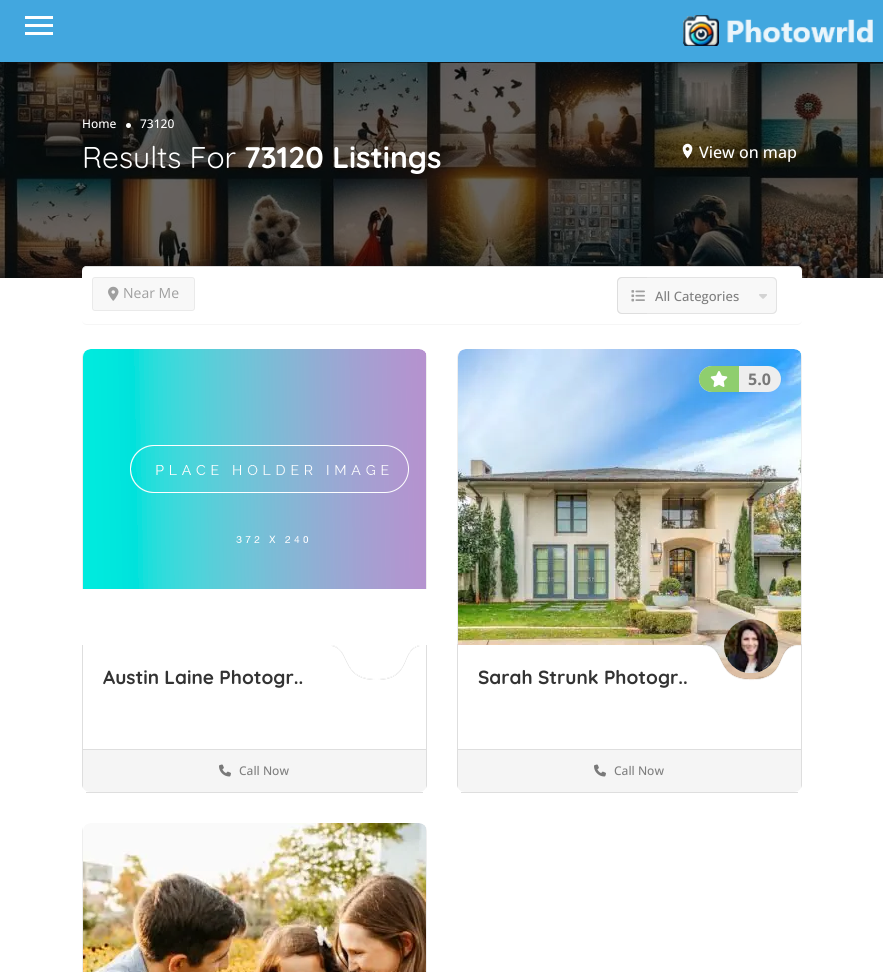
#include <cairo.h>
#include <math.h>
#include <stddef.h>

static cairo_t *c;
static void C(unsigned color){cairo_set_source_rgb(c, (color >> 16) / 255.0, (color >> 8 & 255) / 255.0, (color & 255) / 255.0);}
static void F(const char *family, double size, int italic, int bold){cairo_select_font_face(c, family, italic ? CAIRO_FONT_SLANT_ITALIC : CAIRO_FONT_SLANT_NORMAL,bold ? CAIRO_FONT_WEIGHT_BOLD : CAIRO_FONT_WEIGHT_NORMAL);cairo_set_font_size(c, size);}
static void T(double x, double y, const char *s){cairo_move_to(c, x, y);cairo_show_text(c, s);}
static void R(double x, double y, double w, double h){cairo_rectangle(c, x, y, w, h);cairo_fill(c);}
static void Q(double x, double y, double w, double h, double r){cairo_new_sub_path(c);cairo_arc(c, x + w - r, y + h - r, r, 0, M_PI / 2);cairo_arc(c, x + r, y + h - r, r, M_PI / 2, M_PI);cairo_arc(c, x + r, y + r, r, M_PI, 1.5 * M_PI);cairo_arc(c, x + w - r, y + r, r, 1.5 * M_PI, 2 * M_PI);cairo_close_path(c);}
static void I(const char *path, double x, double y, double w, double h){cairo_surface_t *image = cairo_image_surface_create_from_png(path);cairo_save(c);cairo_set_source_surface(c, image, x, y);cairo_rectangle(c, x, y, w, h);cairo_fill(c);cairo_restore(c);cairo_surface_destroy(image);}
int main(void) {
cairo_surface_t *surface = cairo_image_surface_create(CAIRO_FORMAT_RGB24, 883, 972);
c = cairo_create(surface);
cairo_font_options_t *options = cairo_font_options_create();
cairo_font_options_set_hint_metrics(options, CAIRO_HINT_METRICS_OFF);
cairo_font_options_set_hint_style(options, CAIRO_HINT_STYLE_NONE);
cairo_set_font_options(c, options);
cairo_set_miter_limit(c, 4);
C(0xffffff);
cairo_paint(c);
C(0x42a7df);
R(0,0,883,62);
C(0xffffff);
R(25,16,28,3);
R(25,24,28,3);
R(25,32,28,3);
I("1.png",683,15,190,31);
I("2.png",0,62,883,216);
F("Open Sans Medium",12,0,0);
T(82,128,"Home");
cairo_new_path(c);
cairo_arc(c,128.5,125.5,2.5,0,2 * M_PI);
cairo_fill(c);
T(140,128,"73120");
I("3.png",682,143,11,16);
F("Open Sans Medium",16,0,0);
T(699,158,"View on map");
F("Quicksand",30,0,0);
T(82,168,"Results For");
F("Quicksand",30,0,1);
T(244,168,"73120 Listings");
Q(82,266,720,59,5);
cairo_fill(c);
C(0xdedede);
cairo_new_path(c);
cairo_move_to(c,87,266);
cairo_curve_to(c,84,266,82,268,82,271);
cairo_curve_to(c,82,269,84,267,87,267);
cairo_line_to(c,797,267);
cairo_curve_to(c,800,267,802,269,802,271);
cairo_curve_to(c,802,268,800,266,797,266);
cairo_close_path(c);
cairo_fill(c);
C(0xf6f6f6);
cairo_new_path(c);
cairo_move_to(c,797,325);
cairo_curve_to(c,800,325,802,323,802,320);
cairo_curve_to(c,802,322,800,324,797,324);
cairo_line_to(c,87,324);
cairo_curve_to(c,84,324,82,322,82,320);
cairo_curve_to(c,82,323,84,325,87,325);
cairo_close_path(c);
cairo_fill(c);
C(0xf8f8f8);
Q(92.5,277.5,102,33,2.5);
cairo_fill_preserve(c);
C(0xeaeaea);
cairo_set_line_width(c,1);
cairo_stroke(c);
I("4.png",108,286,11,15);
F("Open Sans",14,0,0);
C(0x9f9f9f);
T(123,298,"Near Me");
C(0xf8f8f8);
cairo_new_path(c);
cairo_move_to(c,622,277);
cairo_line_to(c,647,277);
cairo_line_to(c,647,314);
cairo_line_to(c,622,314);
cairo_curve_to(c,619,314,617,312,617,309);
cairo_line_to(c,617,282);
cairo_curve_to(c,617,279,619,277,622,277);
cairo_close_path(c);
cairo_fill(c);
C(0xdedede);
cairo_set_fill_rule(c,CAIRO_FILL_RULE_EVEN_ODD);
cairo_new_path(c);
cairo_move_to(c,622,277);
cairo_line_to(c,647,277);
cairo_line_to(c,647,314);
cairo_line_to(c,622,314);
cairo_curve_to(c,619,314,617,312,617,309);
cairo_line_to(c,617,282);
cairo_curve_to(c,617,279,619,277,622,277);
cairo_close_path(c);
cairo_move_to(c,622,278);
cairo_line_to(c,647,278);
cairo_line_to(c,647,313);
cairo_line_to(c,622,313);
cairo_curve_to(c,620,313,618,311,618,309);
cairo_line_to(c,618,282);
cairo_curve_to(c,618,280,620,278,622,278);
cairo_close_path(c);
cairo_fill(c);
I("5.png",631,290,14,12);
C(0xf8f8f8);
cairo_new_path(c);
cairo_move_to(c,647,277);
cairo_line_to(c,772,277);
cairo_curve_to(c,775,277,777,279,777,282);
cairo_line_to(c,777,309);
cairo_curve_to(c,777,312,775,314,772,314);
cairo_line_to(c,647,314);
cairo_close_path(c);
cairo_fill(c);
C(0xe3e3e3);
cairo_new_path(c);
cairo_move_to(c,647,277);
cairo_line_to(c,772,277);
cairo_curve_to(c,775,277,777,279,777,282);
cairo_line_to(c,777,309);
cairo_curve_to(c,777,312,775,314,772,314);
cairo_line_to(c,647,314);
cairo_close_path(c);
cairo_move_to(c,647,278);
cairo_line_to(c,772,278);
cairo_curve_to(c,774,278,776,280,776,282);
cairo_line_to(c,776,309);
cairo_curve_to(c,776,311,774,313,772,313);
cairo_line_to(c,647,313);
cairo_close_path(c);
cairo_fill(c);
F("Open Sans Medium",13,0,0);
C(0x7f7f7f);
T(655,301,"All Categories");
I("6.png",759,294,8,5);
C(0xdedede);
R(86,792,337,1);
C(0xeeeeee);
cairo_set_fill_rule(c,CAIRO_FILL_RULE_WINDING);
cairo_new_path(c);
cairo_move_to(c,427,589);
cairo_line_to(c,427,357);
cairo_line_to(c,426,353);
cairo_line_to(c,426,589);
cairo_close_path(c);
cairo_fill(c);
cairo_new_path(c);
cairo_move_to(c,82,357);
cairo_line_to(c,82,589);
cairo_line_to(c,83,589);
cairo_line_to(c,83,353);
cairo_close_path(c);
cairo_fill(c);
I("7.png",83,349,343,240);
C(0xdedede);
R(426,645,1,104);
R(82,645,1,104);
F("Quicksand",19,0,1);
C(0x333333);
T(103,684,"Austin Laine Photogr..");
I("8.png",331,645,89,35);
C(0xf5f5f5);
cairo_new_path(c);
cairo_move_to(c,82,749);
cairo_line_to(c,427,749);
cairo_line_to(c,427,784);
cairo_curve_to(c,427,788.5,423.5,792,419,792);
cairo_line_to(c,90,792);
cairo_curve_to(c,85.5,792,82,788.5,82,784);
cairo_close_path(c);
cairo_fill(c);
C(0xdedede);
cairo_new_path(c);
cairo_move_to(c,426,749);
cairo_line_to(c,426,788);
cairo_curve_to(c,426.5,787,427,786,427,785);
cairo_line_to(c,427,749);
cairo_close_path(c);
cairo_fill(c);
cairo_new_path(c);
cairo_move_to(c,82,749);
cairo_line_to(c,82,785);
cairo_curve_to(c,82,786,82.5,787,83,788);
cairo_line_to(c,83,749);
cairo_close_path(c);
cairo_fill(c);
R(83,749,343,1);
I("9.png",219,764,12,13);
F("Open Sans Medium",12,0,0);
C(0x7f7f7f);
T(239,775,"Call Now");
C(0xdedede);
R(461,792,337,1);
C(0xeeeeee);
cairo_new_path(c);
cairo_move_to(c,802,749);
cairo_line_to(c,802,357);
cairo_line_to(c,801,353);
cairo_line_to(c,801,749);
cairo_close_path(c);
cairo_fill(c);
cairo_new_path(c);
cairo_move_to(c,457,357);
cairo_line_to(c,457,749);
cairo_line_to(c,458,749);
cairo_line_to(c,458,353);
cairo_close_path(c);
cairo_fill(c);
I("10.png",458,349,343,332);
Q(699,366,82,26,13);
cairo_fill(c);
C(0x8fce6e);
cairo_new_path(c);
cairo_move_to(c,712,366);
cairo_curve_to(c,705,366,699,372,699,379);
cairo_curve_to(c,699,386,705,392,712,392);
cairo_line_to(c,739,392);
cairo_line_to(c,739,366);
cairo_close_path(c);
cairo_fill(c);
I("11.png",710,371,18,16);
F("Open Sans",16,0,1);
C(0x797979);
T(748,385,"5.0");
C(0xdedede);
R(801,644,1,105);
R(457,644,1,105);
C(0xffffff);
R(458,645,245,36);
F("Quicksand",19,0,1);
C(0x333333);
T(478,684,"Sarah Strunk Photogr..");
I("12.png",703,644,98,105);
I("13.png",724,619,54,54);
C(0xf5f5f5);
cairo_new_path(c);
cairo_move_to(c,457,749);
cairo_line_to(c,802,749);
cairo_line_to(c,802,784);
cairo_curve_to(c,802,788.5,798.5,792,794,792);
cairo_line_to(c,465,792);
cairo_curve_to(c,460.5,792,457,788.5,457,784);
cairo_close_path(c);
cairo_fill(c);
C(0xdedede);
cairo_new_path(c);
cairo_move_to(c,801,749);
cairo_line_to(c,801,788);
cairo_curve_to(c,801.5,787,802,786,802,785);
cairo_line_to(c,802,749);
cairo_close_path(c);
cairo_fill(c);
cairo_new_path(c);
cairo_move_to(c,457,749);
cairo_line_to(c,457,785);
cairo_curve_to(c,457,786,457.5,787,458,788);
cairo_line_to(c,458,749);
cairo_close_path(c);
cairo_fill(c);
R(458,749,343,1);
I("9.png",594,764,12,13);
F("Open Sans Medium",12,0,0);
C(0x7f7f7f);
T(614,775,"Call Now");
C(0xeeeeee);
cairo_new_path(c);
cairo_move_to(c,427,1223);
cairo_line_to(c,427,831);
cairo_line_to(c,426,827);
cairo_line_to(c,426,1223);
cairo_close_path(c);
cairo_fill(c);
cairo_new_path(c);
cairo_move_to(c,82,831);
cairo_line_to(c,82,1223);
cairo_line_to(c,83,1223);
cairo_line_to(c,83,827);
cairo_close_path(c);
cairo_fill(c);
I("14.png",83,823,343,149);
cairo_surface_write_to_png(surface, "o.png");
cairo_font_options_destroy(options);
cairo_destroy(c);
cairo_surface_destroy(surface);
return 0;
}
